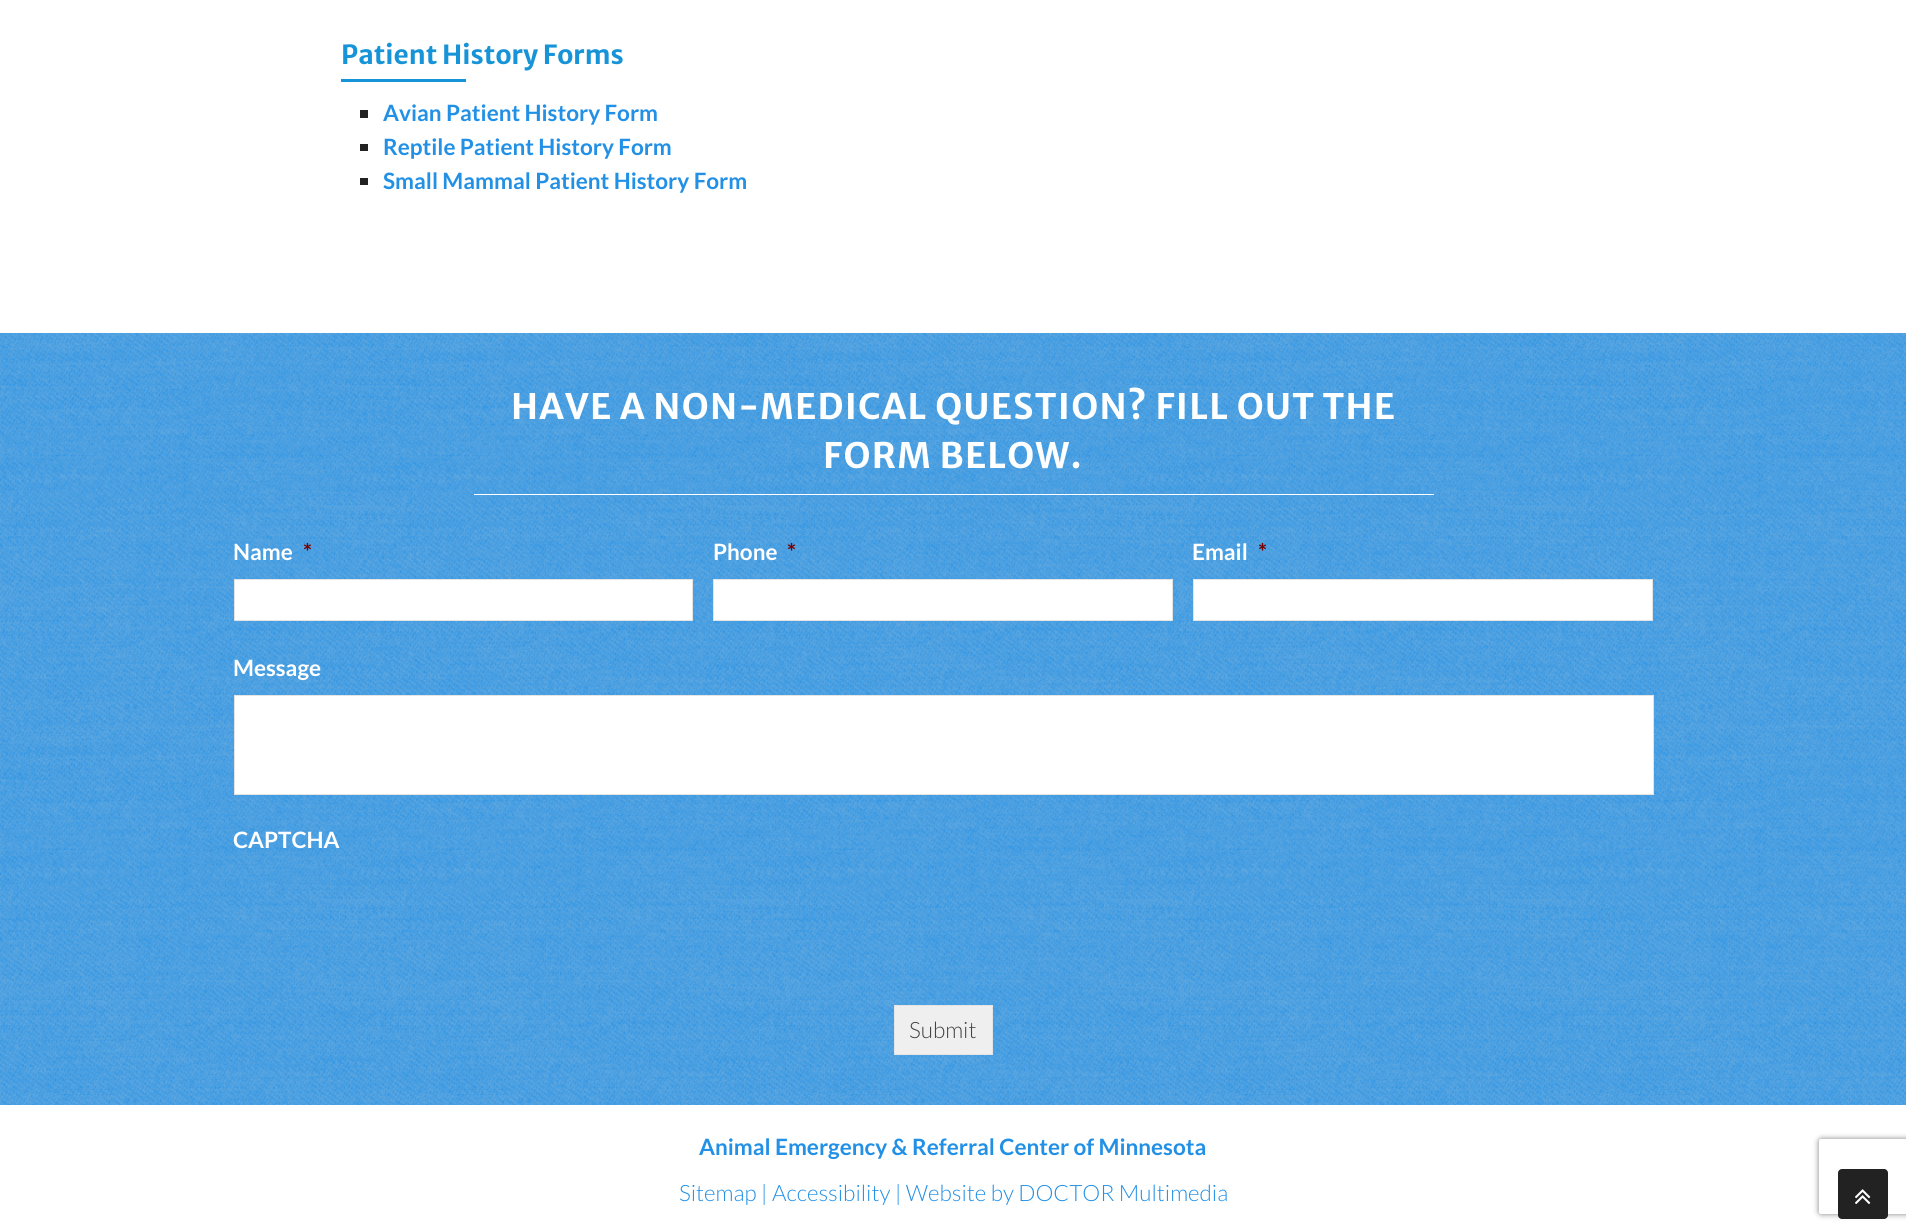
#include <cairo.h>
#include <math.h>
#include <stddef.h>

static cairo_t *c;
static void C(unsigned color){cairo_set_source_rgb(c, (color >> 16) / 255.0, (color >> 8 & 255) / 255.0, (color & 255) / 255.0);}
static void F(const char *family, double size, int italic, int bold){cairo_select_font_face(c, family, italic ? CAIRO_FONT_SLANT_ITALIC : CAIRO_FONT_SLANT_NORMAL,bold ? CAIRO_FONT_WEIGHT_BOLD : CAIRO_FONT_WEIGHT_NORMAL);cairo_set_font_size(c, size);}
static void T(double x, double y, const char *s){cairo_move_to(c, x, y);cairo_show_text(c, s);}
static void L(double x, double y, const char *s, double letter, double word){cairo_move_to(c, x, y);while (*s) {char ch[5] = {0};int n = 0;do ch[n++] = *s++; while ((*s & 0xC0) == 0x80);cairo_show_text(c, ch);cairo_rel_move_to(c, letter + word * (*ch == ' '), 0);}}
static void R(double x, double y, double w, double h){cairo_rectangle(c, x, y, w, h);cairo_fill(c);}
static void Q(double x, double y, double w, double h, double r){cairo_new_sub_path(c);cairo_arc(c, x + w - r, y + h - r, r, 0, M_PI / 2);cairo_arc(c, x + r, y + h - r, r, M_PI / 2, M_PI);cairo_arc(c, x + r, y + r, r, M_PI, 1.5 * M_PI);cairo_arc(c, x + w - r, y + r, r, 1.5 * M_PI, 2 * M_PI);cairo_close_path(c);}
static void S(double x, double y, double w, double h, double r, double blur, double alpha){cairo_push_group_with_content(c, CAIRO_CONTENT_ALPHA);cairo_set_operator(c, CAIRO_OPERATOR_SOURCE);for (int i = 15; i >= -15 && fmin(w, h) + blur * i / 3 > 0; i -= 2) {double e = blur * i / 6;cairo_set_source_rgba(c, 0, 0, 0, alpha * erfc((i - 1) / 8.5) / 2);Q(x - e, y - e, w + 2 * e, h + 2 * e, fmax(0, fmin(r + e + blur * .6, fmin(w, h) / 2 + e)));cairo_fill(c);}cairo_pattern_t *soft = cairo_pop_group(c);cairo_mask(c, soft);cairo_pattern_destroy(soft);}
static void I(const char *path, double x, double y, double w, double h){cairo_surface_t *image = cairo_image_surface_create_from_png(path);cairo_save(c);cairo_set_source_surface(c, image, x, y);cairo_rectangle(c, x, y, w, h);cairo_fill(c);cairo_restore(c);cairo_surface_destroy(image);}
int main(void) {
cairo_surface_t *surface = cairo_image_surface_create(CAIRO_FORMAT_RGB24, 1906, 1231);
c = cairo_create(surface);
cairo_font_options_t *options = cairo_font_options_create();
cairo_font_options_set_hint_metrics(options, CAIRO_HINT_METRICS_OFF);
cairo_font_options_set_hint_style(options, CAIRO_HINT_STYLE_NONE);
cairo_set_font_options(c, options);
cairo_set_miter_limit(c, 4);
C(0xffffff);
cairo_paint(c);
F("Merriweather Sans",26.25,0,1);
C(0x1793d7);
T(341,64,"Patient History Forms");
R(341,79,125,3);
C(0x222222);
R(360,110,8,8);
F("Lato",22.5,0,1);
C(0x2290e5);
T(383,121,"Avian Patient History Form");
C(0x222222);
R(360,144,8,7);
C(0x2290e5);
T(383,155,"Reptile Patient History Form");
C(0x222222);
R(360,178,8,7);
C(0x2290e5);
T(383,189,"Small Mammal Patient History Form");
R(0,333,1906,772);
I("1.png",0,332,1906,773);
cairo_set_source_rgba(c,1,1,1,0.87);
R(1,332,1905,1);
C(0xffffff);
R(474,494,960,1);
F("Merriweather Sans",35,0,1);
L(511,419,"HAVE A NON-MEDICAL QUESTION? FILL OUT THE",1.25,0);
L(823,468,"FORM BELOW.",1.25,0);
F("Lato",22.5,0,1);
T(233,560,"Name");
C(0x790000);
T(303,560,"*");
C(0xffffff);
cairo_rectangle(c,234.5,579.5,458,41);
cairo_fill_preserve(c);
C(0xe4e4e4);
cairo_set_line_width(c,1);
cairo_stroke(c);
C(0xffffff);
T(713,560,"Phone");
C(0x790000);
T(787,560,"*");
C(0xffffff);
cairo_rectangle(c,713.5,579.5,459,41);
cairo_fill_preserve(c);
C(0xe4e4e4);
cairo_stroke(c);
C(0xffffff);
T(1192,560,"Email");
C(0x790000);
T(1258,560,"*");
C(0xffffff);
cairo_rectangle(c,1193.5,579.5,459,41);
cairo_fill_preserve(c);
C(0xe4e4e4);
cairo_stroke(c);
C(0xffffff);
T(233,676,"Message");
cairo_rectangle(c,234.5,695.5,1419,99);
cairo_fill_preserve(c);
C(0xe4e4e4);
cairo_stroke(c);
C(0xffffff);
T(233,848,"CAPTCHA");
C(0xefefef);
cairo_rectangle(c,894.5,1005.5,98,49);
cairo_fill_preserve(c);
C(0xe4e4e4);
cairo_stroke(c);
F("Lato Light",22.5,0,0);
C(0x444444);
T(909,1038,"Submit");
F("Lato",22.5,0,1);
C(0x2290e5);
T(699,1155,"Animal Emergency & Referral Center of Minnesota");
F("Lato Light",22.5,0,0);
T(679,1201,"Sitemap | Accessibility | Website by DOCTOR Multimedia");
cairo_save(c);
cairo_set_fill_rule(c,CAIRO_FILL_RULE_EVEN_ODD);
cairo_new_path(c);
cairo_move_to(c,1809,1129);
cairo_line_to(c,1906,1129);
cairo_line_to(c,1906,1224);
cairo_line_to(c,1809,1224);
cairo_close_path(c);
cairo_move_to(c,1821.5,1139);
cairo_line_to(c,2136.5,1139);
cairo_curve_to(c,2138,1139,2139,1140,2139,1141.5);
cairo_line_to(c,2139,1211.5);
cairo_curve_to(c,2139,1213,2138,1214,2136.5,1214);
cairo_line_to(c,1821.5,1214);
cairo_curve_to(c,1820,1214,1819,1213,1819,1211.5);
cairo_line_to(c,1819,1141.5);
cairo_curve_to(c,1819,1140,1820,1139,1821.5,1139);
cairo_close_path(c);
cairo_clip(c);
C(0x808080);
S(1819,1139,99,75,2.5,3,1);
cairo_restore(c);
C(0x222222);
Q(1838,1169,50,50,4);
cairo_fill(c);
I("2.png",1855,1189,16,15);
cairo_surface_write_to_png(surface, "o.png");
cairo_font_options_destroy(options);
cairo_destroy(c);
cairo_surface_destroy(surface);
return 0;
}
